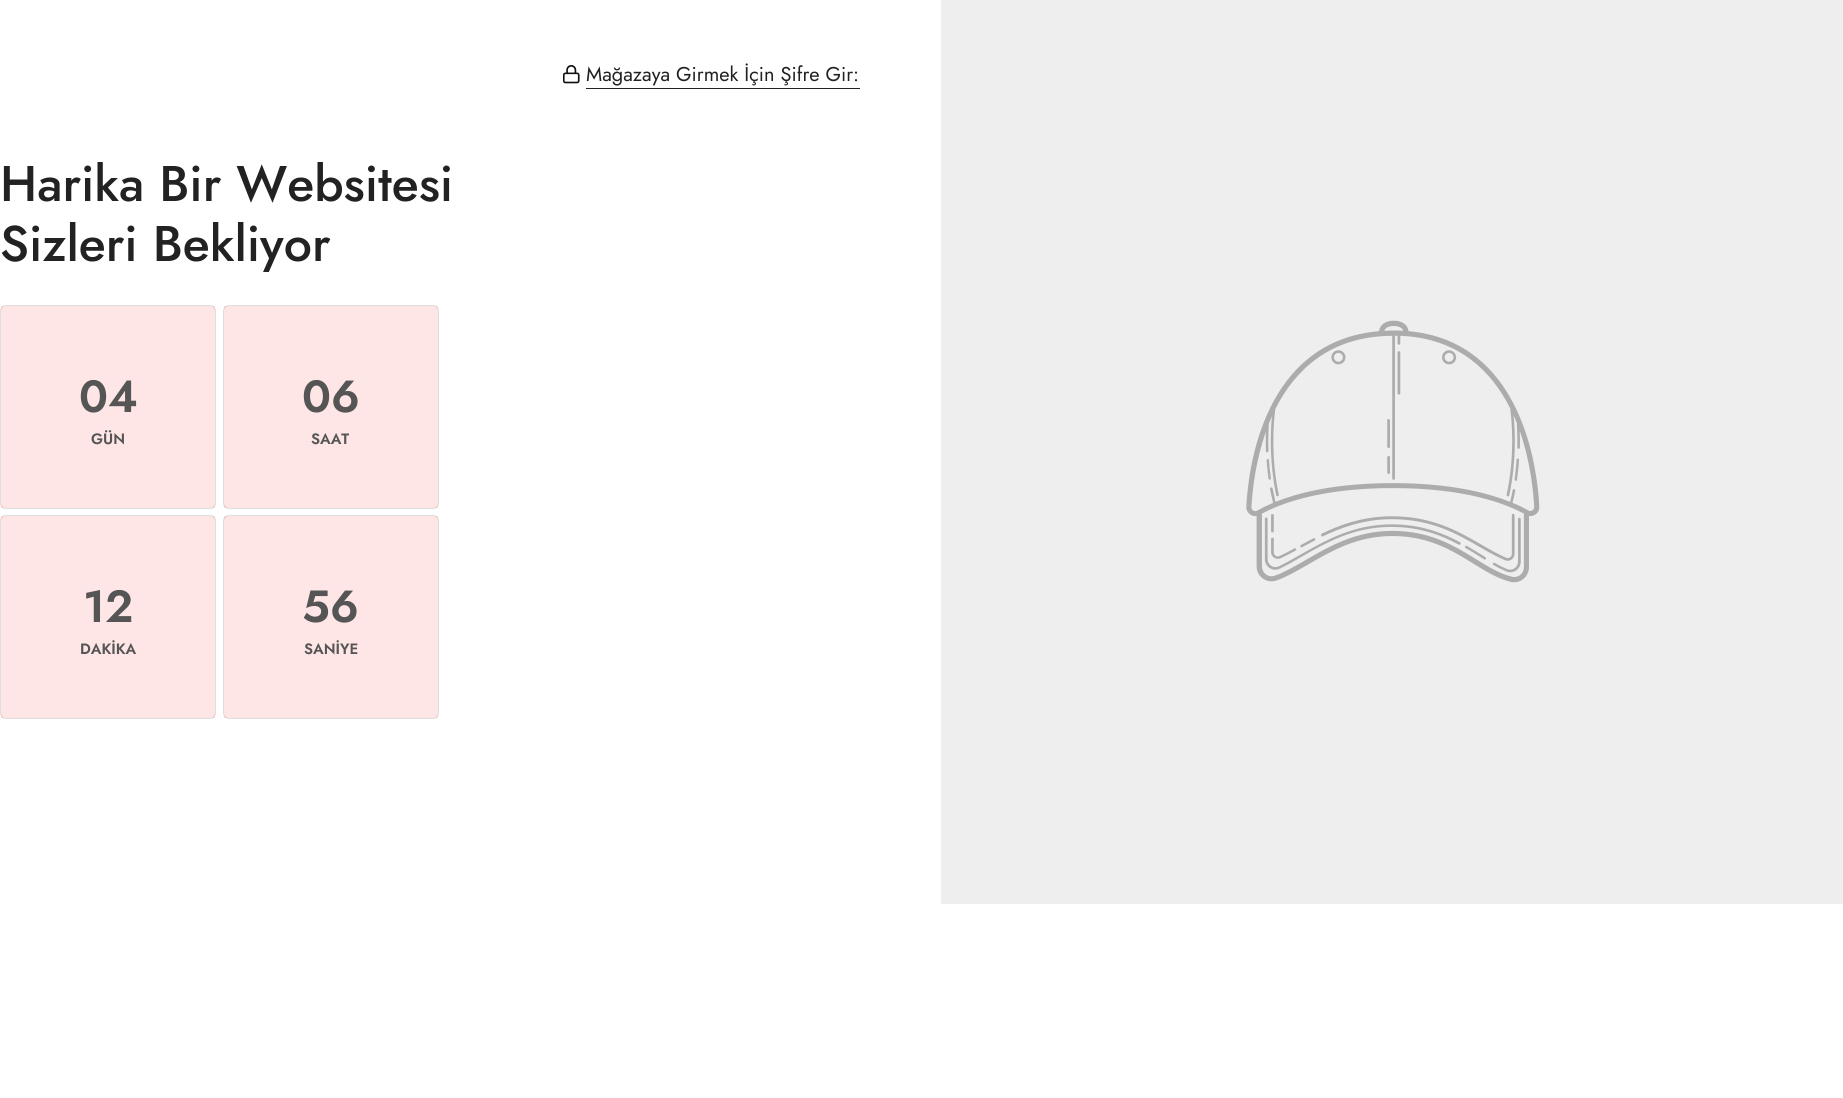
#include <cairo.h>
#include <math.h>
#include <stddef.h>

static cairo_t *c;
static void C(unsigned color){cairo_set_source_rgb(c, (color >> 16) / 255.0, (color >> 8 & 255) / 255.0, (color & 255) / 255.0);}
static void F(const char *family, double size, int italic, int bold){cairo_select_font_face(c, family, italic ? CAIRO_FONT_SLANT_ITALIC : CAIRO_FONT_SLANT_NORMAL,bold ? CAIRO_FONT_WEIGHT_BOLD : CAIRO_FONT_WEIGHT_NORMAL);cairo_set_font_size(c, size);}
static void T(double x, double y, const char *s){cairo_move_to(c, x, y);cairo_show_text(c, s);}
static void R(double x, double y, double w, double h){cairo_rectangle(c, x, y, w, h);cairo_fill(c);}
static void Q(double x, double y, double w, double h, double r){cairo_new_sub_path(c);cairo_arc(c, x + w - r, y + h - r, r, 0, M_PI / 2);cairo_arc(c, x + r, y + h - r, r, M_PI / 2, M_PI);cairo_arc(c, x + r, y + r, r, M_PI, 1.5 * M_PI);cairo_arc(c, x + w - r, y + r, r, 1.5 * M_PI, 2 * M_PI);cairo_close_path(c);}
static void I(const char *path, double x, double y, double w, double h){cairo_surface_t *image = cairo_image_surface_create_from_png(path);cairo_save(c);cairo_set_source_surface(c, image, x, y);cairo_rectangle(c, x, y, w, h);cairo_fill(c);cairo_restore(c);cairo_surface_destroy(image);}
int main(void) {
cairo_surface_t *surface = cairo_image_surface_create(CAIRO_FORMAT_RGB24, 1843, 1098);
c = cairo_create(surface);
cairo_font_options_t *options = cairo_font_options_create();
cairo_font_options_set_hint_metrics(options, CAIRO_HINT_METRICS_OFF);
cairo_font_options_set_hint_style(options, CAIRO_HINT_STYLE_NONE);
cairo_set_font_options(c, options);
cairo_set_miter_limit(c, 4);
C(0xffffff);
cairo_paint(c);
I("1.png",563,65,17,19);
F("Jost",20,0,0);
C(0x222222);
T(586,81,"Mağazaya Girmek İçin Şifre Gir:");
R(586,88,274,1);
F("Jost Medium",50,0,0);
T(0,201,"Harika Bir Websitesi");
T(0,261,"Sizleri Bekliyor");
Q(.5,305.5,215,203,5.5);
C(0xdedede);
cairo_set_line_width(c,1);
cairo_stroke(c);
cairo_set_source_rgba(c,1,0,0,0.1);
R(1,306,214,202);
F("Jost SemiBold",45,0,0);
C(0x555555);
T(79,412,"04");
F("Jost SemiBold",15,0,0);
T(91,444,"GÜN");
Q(223.5,305.5,215,203,5.5);
C(0xdedede);
cairo_stroke(c);
cairo_set_source_rgba(c,1,0,0,0.1);
R(224,306,214,202);
F("Jost SemiBold",45,0,0);
C(0x555555);
T(302,412,"06");
F("Jost SemiBold",15,0,0);
T(311,444,"SAAT");
Q(.5,515.5,215,203,5.5);
C(0xdedede);
cairo_stroke(c);
cairo_set_source_rgba(c,1,0,0,0.1);
R(1,516,214,202);
F("Jost SemiBold",45,0,0);
C(0x555555);
T(83,622,"12");
F("Jost SemiBold",15,0,0);
T(80,654,"DAKİKA");
Q(223.5,515.5,215,203,5.5);
C(0xdedede);
cairo_stroke(c);
cairo_set_source_rgba(c,1,0,0,0.1);
R(224,516,214,202);
F("Jost SemiBold",45,0,0);
C(0x555555);
T(302,622,"56");
F("Jost SemiBold",15,0,0);
T(304,654,"SANİYE");
C(0xeeeeee);
R(941,0,902,904);
I("2.png",1246,320,294,263);
cairo_surface_write_to_png(surface, "o.png");
cairo_font_options_destroy(options);
cairo_destroy(c);
cairo_surface_destroy(surface);
return 0;
}
